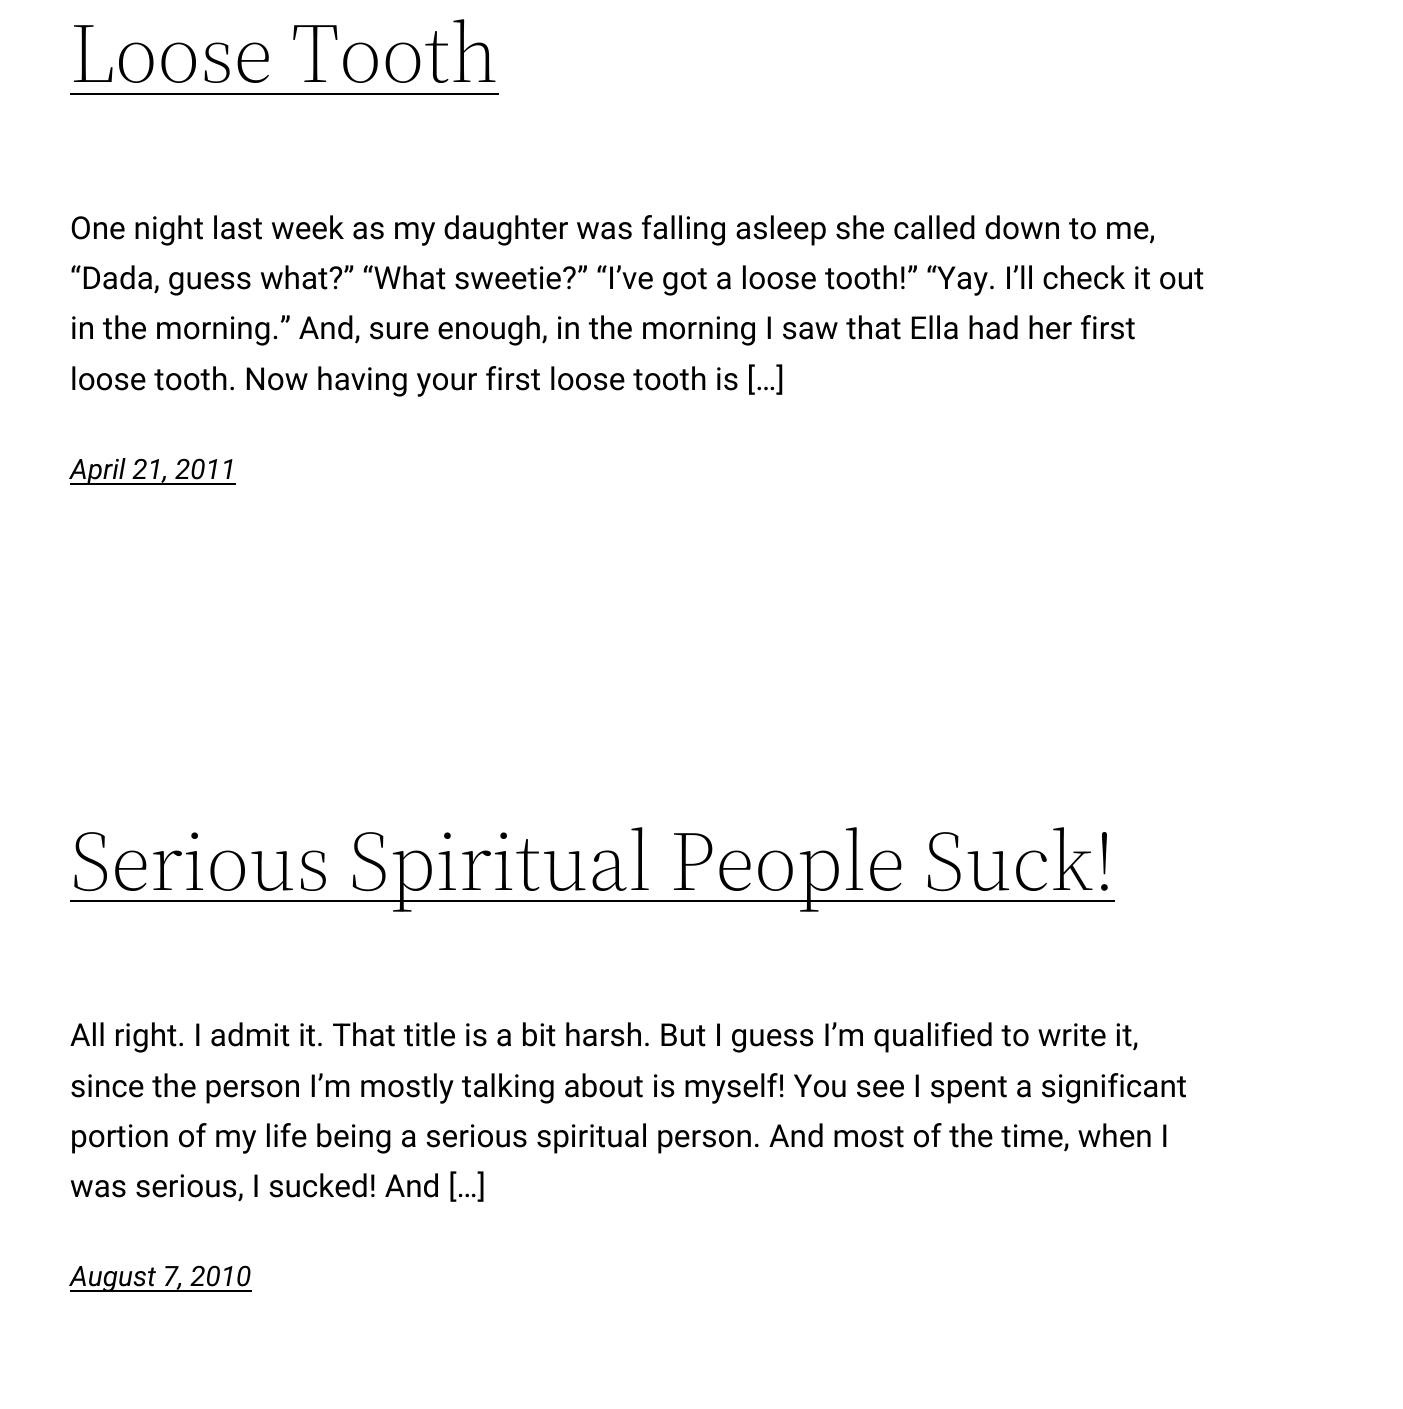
#include <cairo.h>
#include <math.h>
#include <stddef.h>

static cairo_t *c;
static void C(unsigned color){cairo_set_source_rgb(c, (color >> 16) / 255.0, (color >> 8 & 255) / 255.0, (color & 255) / 255.0);}
static void F(const char *family, double size, int italic, int bold){cairo_select_font_face(c, family, italic ? CAIRO_FONT_SLANT_ITALIC : CAIRO_FONT_SLANT_NORMAL,bold ? CAIRO_FONT_WEIGHT_BOLD : CAIRO_FONT_WEIGHT_NORMAL);cairo_set_font_size(c, size);}
static void T(double x, double y, const char *s){cairo_move_to(c, x, y);cairo_show_text(c, s);}
static void R(double x, double y, double w, double h){cairo_rectangle(c, x, y, w, h);cairo_fill(c);}
int main(void) {
cairo_surface_t *surface = cairo_image_surface_create(CAIRO_FORMAT_RGB24, 1403, 1409);
c = cairo_create(surface);
cairo_font_options_t *options = cairo_font_options_create();
cairo_font_options_set_hint_metrics(options, CAIRO_HINT_METRICS_OFF);
cairo_font_options_set_hint_style(options, CAIRO_HINT_STYLE_NONE);
cairo_set_font_options(c, options);
cairo_set_miter_limit(c, 4);
C(0xffffff);
cairo_paint(c);
F("Source Serif 4 Light",84.25,0,0);
C(0x000000);
T(70,82,"Loose Tooth");
R(70,93,429,2);
F("Roboto",31.5,0,0);
T(70,239,"One night last week as my daughter was falling asleep she called down to me,");
T(70,289,"“Dada, guess what?” “What sweetie?” “I’ve got a loose tooth!” “Yay. I’ll check it out");
T(70,339,"in the morning.” And, sure enough, in the morning I saw that Ella had her first");
T(70,390,"loose tooth. Now having your first loose tooth is […]");
R(70,483,166,2);
F("Roboto",28,1,0);
T(70,479,"April 21, 2011");
R(70,900,1045,2);
F("Source Serif 4 Light",84.25,0,0);
T(70,890,"Serious Spiritual People Suck!");
F("Roboto",31.5,0,0);
T(70,1046,"All right. I admit it. That title is a bit harsh. But I guess I’m qualified to write it,");
T(70,1097,"since the person I’m mostly talking about is myself! You see I spent a significant");
T(70,1147,"portion of my life being a serious spiritual person. And most of the time, when I");
T(70,1197,"was serious, I sucked! And […]");
R(70,1290,182,2);
F("Roboto",28,1,0);
T(70,1286,"August 7, 2010");
cairo_surface_write_to_png(surface, "o.png");
cairo_font_options_destroy(options);
cairo_destroy(c);
cairo_surface_destroy(surface);
return 0;
}
